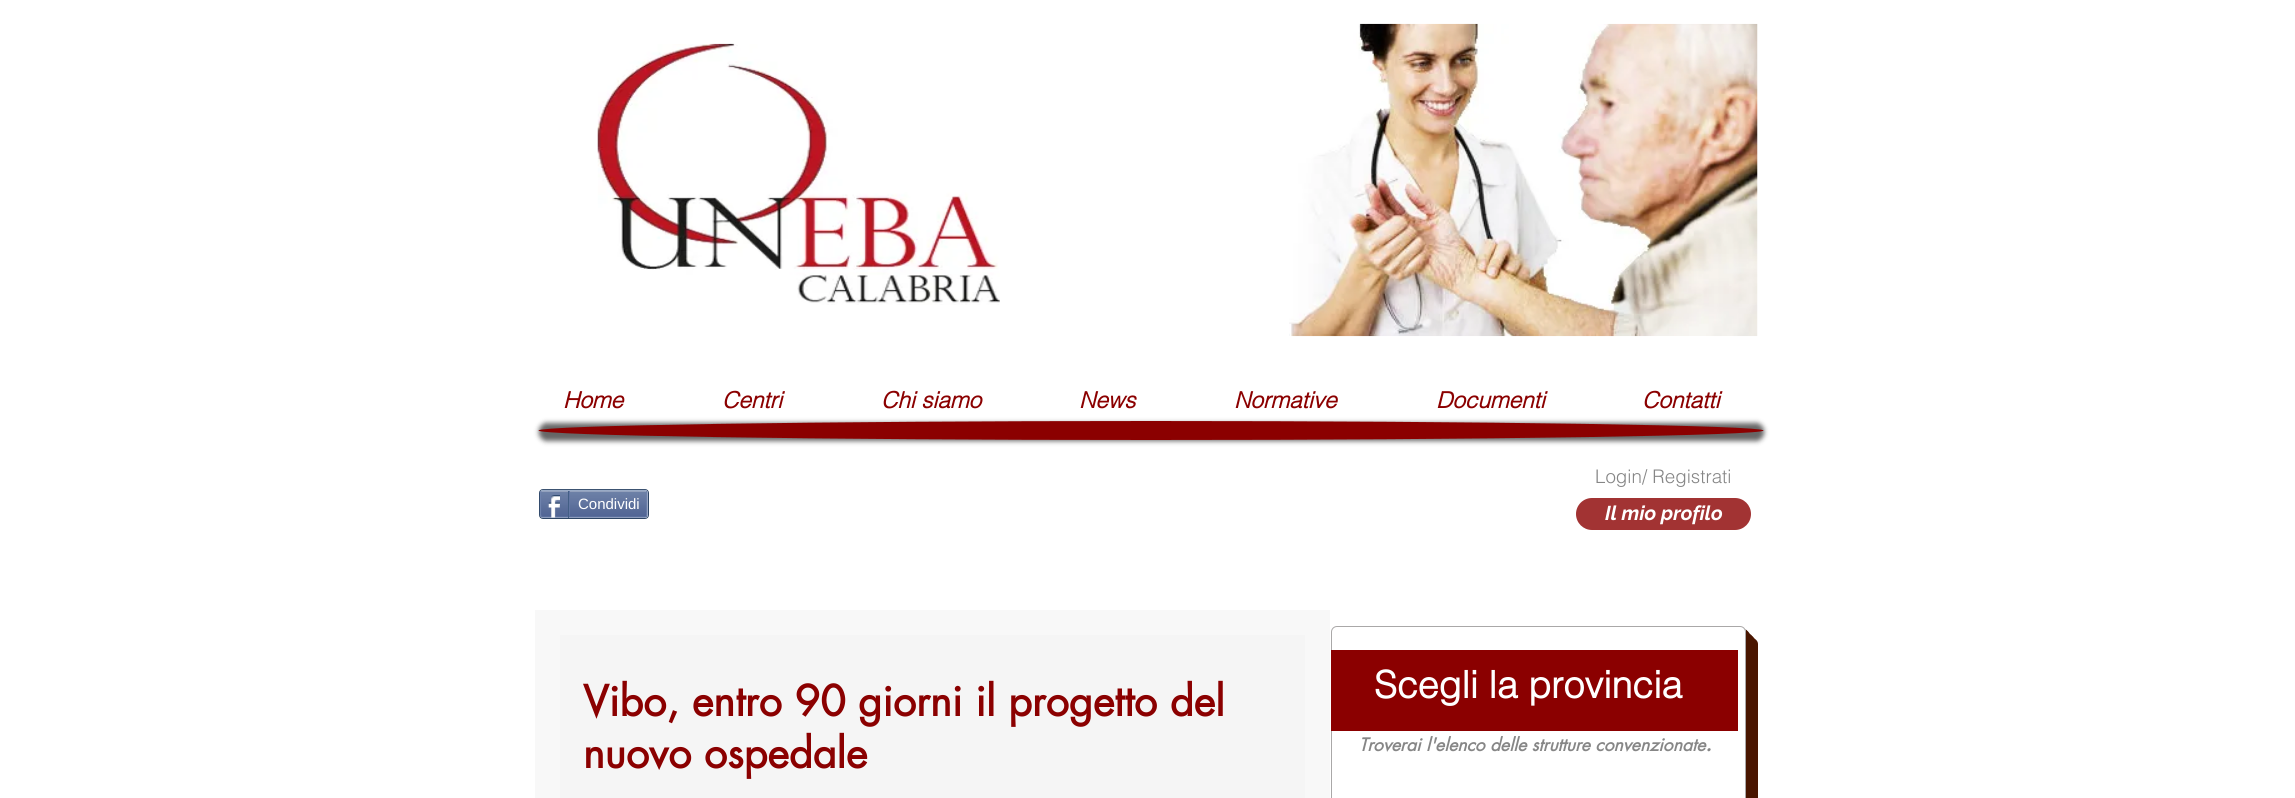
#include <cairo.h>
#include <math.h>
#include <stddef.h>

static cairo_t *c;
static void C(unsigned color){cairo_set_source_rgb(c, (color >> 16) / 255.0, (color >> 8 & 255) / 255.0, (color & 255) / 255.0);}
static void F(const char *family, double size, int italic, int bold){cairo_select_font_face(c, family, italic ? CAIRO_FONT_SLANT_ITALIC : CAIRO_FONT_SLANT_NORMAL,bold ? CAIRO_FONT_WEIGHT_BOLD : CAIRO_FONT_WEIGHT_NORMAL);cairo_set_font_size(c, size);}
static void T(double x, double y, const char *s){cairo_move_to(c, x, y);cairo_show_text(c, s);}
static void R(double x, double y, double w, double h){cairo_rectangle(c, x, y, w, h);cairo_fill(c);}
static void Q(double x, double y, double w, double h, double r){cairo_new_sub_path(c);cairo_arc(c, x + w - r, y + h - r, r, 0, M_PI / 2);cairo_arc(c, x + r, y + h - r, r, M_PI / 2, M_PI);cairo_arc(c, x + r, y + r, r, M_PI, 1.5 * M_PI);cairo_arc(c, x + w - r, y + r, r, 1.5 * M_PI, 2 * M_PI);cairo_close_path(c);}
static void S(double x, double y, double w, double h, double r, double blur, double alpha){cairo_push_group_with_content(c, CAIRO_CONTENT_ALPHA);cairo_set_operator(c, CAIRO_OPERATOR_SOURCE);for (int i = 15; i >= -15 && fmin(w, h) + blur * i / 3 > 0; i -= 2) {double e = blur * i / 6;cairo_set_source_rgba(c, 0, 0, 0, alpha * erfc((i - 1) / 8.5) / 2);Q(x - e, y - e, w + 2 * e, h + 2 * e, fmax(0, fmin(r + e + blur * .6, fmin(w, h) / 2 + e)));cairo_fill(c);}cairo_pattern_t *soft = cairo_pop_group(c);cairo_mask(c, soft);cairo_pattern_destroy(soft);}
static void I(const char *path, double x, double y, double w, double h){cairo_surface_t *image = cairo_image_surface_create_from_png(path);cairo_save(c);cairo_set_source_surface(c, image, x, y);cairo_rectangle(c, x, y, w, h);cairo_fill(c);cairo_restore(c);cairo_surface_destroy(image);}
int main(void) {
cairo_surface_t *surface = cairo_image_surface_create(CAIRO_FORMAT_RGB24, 2295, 798);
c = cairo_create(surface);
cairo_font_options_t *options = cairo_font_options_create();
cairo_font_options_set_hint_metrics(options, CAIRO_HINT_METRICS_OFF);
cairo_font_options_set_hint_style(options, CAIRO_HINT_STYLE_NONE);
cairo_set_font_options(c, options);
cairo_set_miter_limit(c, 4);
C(0xffffff);
cairo_paint(c);
I("1.png",597,43,403,262);
I("2.png",1289,23,469,314);
F("helvetica",22.5,1,1);
C(0x8b0000);
T(563,408,"Home");
T(722,408,"Centri");
T(881,408,"Chi siamo");
T(1079,408,"News");
T(1234,408,"Normative");
T(1436,408,"Documenti");
T(1642,408,"Contatti");
C(0x000000);
S(539,423,1225,18,9,2.5,.6);
C(0x8b0000);
cairo_new_path(c);
cairo_move_to(c,1151,421);
cairo_curve_to(c,1489.5,421,1763.5,425.5,1763.5,430.5);
cairo_curve_to(c,1763.5,435.5,1489.5,440,1151,440);
cairo_curve_to(c,812.5,440,538.5,435.5,538.5,430.5);
cairo_curve_to(c,538.5,425.5,812.5,421,1151,421);
cairo_close_path(c);
cairo_fill(c);
F("helvetica Light",18.75,0,0);
C(0x868686);
T(1595,483,"Login/ Registrati");
Q(539.5,489.5,109,29,3.5);
C(0x2d4565);
cairo_set_line_width(c,1);
cairo_stroke(c);
I("3.png",540,491,108,27);
cairo_new_path(c);
cairo_move_to(c,541,491);
cairo_line_to(c,542.5,490.5);
cairo_line_to(c,645,490.5);
cairo_line_to(c,646.5,491);
C(0x9aabc6);
cairo_set_line_width(c,1.2);
cairo_stroke(c);
cairo_new_path(c);
cairo_move_to(c,646.5,491);
cairo_line_to(c,647,492.5);
cairo_line_to(c,647,515);
cairo_line_to(c,646.5,516.5);
C(0x6f83ad);
cairo_stroke(c);
cairo_new_path(c);
cairo_move_to(c,646.5,516.5);
cairo_line_to(c,645,517);
cairo_line_to(c,542.5,517);
cairo_line_to(c,541,516.5);
C(0x6176a3);
cairo_stroke(c);
cairo_new_path(c);
cairo_move_to(c,541,516.5);
cairo_line_to(c,540.5,515);
cairo_line_to(c,540.5,492.5);
cairo_line_to(c,541,491);
C(0x6f83ad);
cairo_stroke(c);
I("4.png",547,495,13,23);
C(0x425e85);
R(568,491,1,27);
F("Liberation Sans",15,0,0);
C(0xffffff);
T(578,509,"Condividi");
C(0x6176a3);
R(569,491,1,25);
C(0xa23333);
Q(1576,498,175,32,16);
cairo_fill(c);
F("Raleway",20,1,1);
C(0xffffff);
T(1605,520,"Il mio profilo");
C(0xf8f8f8);
R(535,610,795,188);
C(0xf5f5f5);
R(560,635,745,163);
F("futura",41.25,0,1);
C(0x8b0000);
T(583,716,"Vibo, entro 90 giorni il progetto del");
T(583,768,"nuovo ospedale");
C(0x491500);
cairo_new_path(c);
cairo_move_to(c,1343,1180);
cairo_line_to(c,1343,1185);
cairo_curve_to(c,1343,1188,1346,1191,1349,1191);
cairo_line_to(c,1752,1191);
cairo_curve_to(c,1755,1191,1758,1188,1758,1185);
cairo_line_to(c,1758,644);
cairo_curve_to(c,1758,641,1755,638,1752,638);
cairo_line_to(c,1746,638);
cairo_line_to(c,1746,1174);
cairo_curve_to(c,1746,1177,1743,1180,1740,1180);
cairo_close_path(c);
cairo_fill(c);
cairo_new_path(c);
cairo_move_to(c,1340,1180);
cairo_line_to(c,1340,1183);
cairo_curve_to(c,1340,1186,1343,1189,1346,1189);
cairo_line_to(c,1749,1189);
cairo_curve_to(c,1752,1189,1755,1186,1755,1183);
cairo_line_to(c,1755,641);
cairo_curve_to(c,1755,638,1752,635,1749,635);
cairo_line_to(c,1746,635);
cairo_line_to(c,1746,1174);
cairo_curve_to(c,1746,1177,1743,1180,1740,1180);
cairo_close_path(c);
cairo_fill(c);
cairo_new_path(c);
cairo_move_to(c,1338,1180);
cairo_curve_to(c,1338,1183,1341,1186,1344,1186);
cairo_line_to(c,1747,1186);
cairo_curve_to(c,1750,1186,1753,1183,1753,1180);
cairo_line_to(c,1753,639);
cairo_curve_to(c,1753,636,1750,633,1747,633);
cairo_line_to(c,1746,633);
cairo_line_to(c,1746,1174);
cairo_curve_to(c,1746,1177,1743,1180,1740,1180);
cairo_close_path(c);
cairo_fill(c);
cairo_new_path(c);
cairo_move_to(c,1335,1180);
cairo_curve_to(c,1336,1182,1338,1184,1341,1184);
cairo_line_to(c,1744,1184);
cairo_curve_to(c,1747,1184,1750,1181,1750,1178);
cairo_line_to(c,1750,636);
cairo_curve_to(c,1750,633,1748,631,1746,630);
cairo_line_to(c,1746,632);
cairo_line_to(c,1746,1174);
cairo_curve_to(c,1746,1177,1743,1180,1740,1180);
cairo_line_to(c,1338,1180);
cairo_close_path(c);
cairo_fill(c);
cairo_new_path(c);
cairo_move_to(c,1335,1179);
cairo_curve_to(c,1336,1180,1337,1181,1339,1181);
cairo_line_to(c,1742,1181);
cairo_curve_to(c,1745,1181,1748,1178,1748,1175);
cairo_line_to(c,1748,634);
cairo_curve_to(c,1748,632,1747,630,1745,629);
cairo_curve_to(c,1746,630,1746,631,1746,632);
cairo_line_to(c,1746,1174);
cairo_curve_to(c,1746,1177,1743,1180,1740,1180);
cairo_line_to(c,1338,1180);
cairo_close_path(c);
cairo_fill(c);
Q(1331.5,626.5,414,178,5.5);
C(0xaaa8a8);
cairo_set_line_width(c,1);
cairo_stroke(c);
C(0x8b0000);
R(1331,650,407,81);
F("helvetica",37.5,0,1);
C(0xffffff);
T(1374,698,"Scegli la provincia");
F("futura",17.5,1,1);
C(0x868686);
T(1359,751,"Troverai l'elenco delle strutture convenzionate");
F("futura",22.5,1,1);
T(1705,751,".");
cairo_surface_write_to_png(surface, "o.png");
cairo_font_options_destroy(options);
cairo_destroy(c);
cairo_surface_destroy(surface);
return 0;
}
